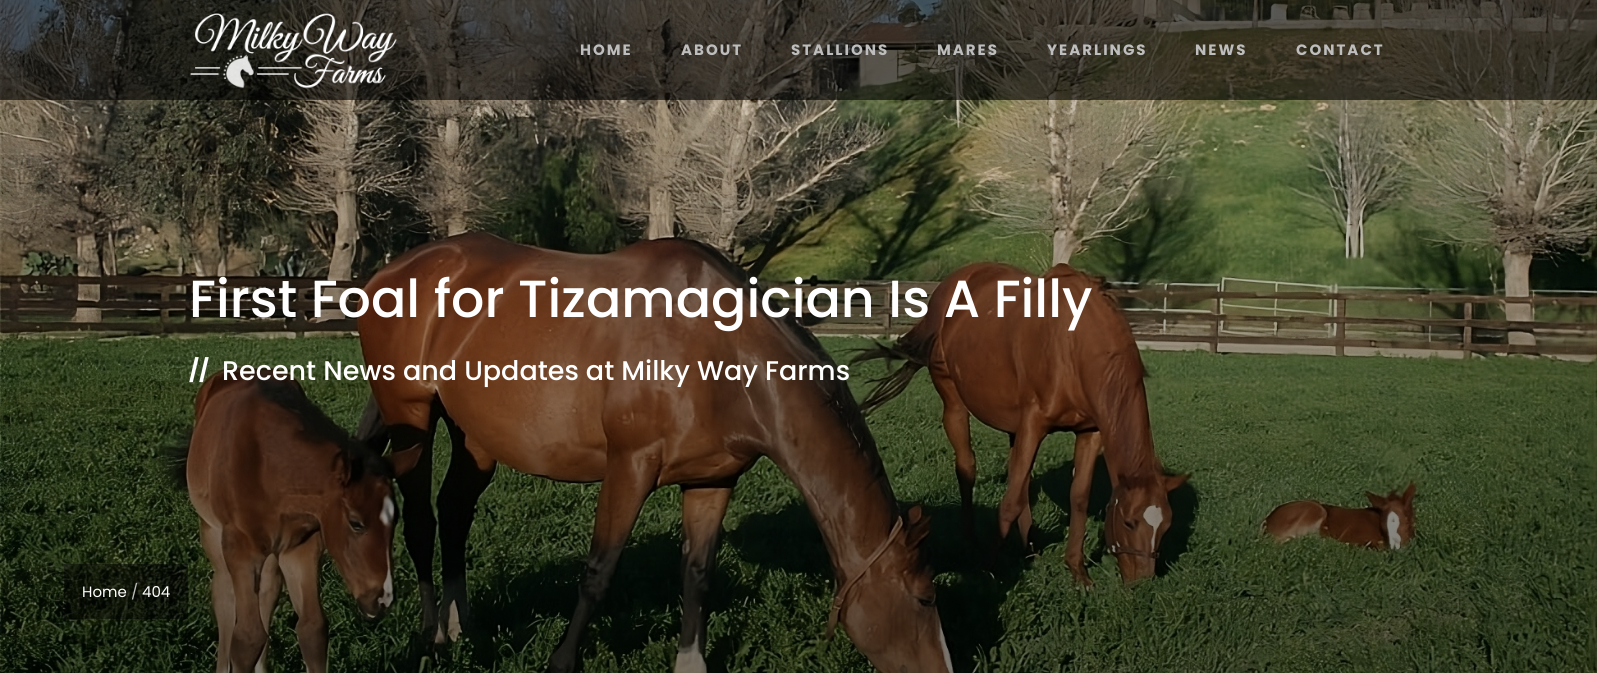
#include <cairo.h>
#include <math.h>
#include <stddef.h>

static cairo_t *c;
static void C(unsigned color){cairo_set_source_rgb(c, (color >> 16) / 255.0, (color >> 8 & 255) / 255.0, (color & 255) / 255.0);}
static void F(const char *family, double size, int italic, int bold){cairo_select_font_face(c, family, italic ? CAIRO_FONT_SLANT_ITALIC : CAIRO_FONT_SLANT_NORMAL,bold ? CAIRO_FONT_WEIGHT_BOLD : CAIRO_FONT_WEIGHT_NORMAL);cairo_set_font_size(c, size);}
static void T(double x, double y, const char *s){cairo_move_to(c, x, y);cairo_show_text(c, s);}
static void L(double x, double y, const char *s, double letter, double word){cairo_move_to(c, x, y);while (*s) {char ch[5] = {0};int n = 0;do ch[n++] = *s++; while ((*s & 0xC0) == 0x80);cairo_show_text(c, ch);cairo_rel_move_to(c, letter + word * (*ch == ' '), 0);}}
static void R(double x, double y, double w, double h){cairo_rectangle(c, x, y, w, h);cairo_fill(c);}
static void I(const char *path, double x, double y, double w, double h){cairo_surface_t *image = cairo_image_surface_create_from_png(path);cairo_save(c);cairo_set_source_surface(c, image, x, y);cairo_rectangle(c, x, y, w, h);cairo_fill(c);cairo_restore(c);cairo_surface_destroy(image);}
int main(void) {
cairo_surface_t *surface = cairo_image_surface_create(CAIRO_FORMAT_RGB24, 1597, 673);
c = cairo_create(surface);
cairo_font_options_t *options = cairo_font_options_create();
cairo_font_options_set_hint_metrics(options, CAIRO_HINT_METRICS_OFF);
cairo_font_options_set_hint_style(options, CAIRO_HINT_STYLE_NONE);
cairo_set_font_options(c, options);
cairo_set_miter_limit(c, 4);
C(0xffffff);
cairo_paint(c);
I("2.png",0,0,1597,673);
cairo_set_source_rgba(c,0,0,0,0.6);
R(0,0,1597,100);
I("1.png",190,13,207,76);
F("Poppins",15,0,1);
C(0xbebebe);
L(580,55,"HOME",2,0);
L(681,55,"ABOUT",2,0);
L(791,55,"STALLIONS",2,0);
L(937,55,"MARES",2,0);
L(1047,55,"YEARLINGS",2,0);
L(1195,55,"NEWS",2,0);
L(1296,55,"CONTACT",2,0);
F("Poppins Medium",52.25,0,0);
C(0xffffff);
T(189,317,"First Foal for Tizamagician Is A Filly");
F("Poppins",22,0,1);
T(189,378,"//");
F("Poppins Medium",27,0,0);
T(222,380,"Recent News and Updates at Milky Way Farms");
cairo_set_source_rgba(c,0,0,0,0.45);
R(64,564,124,55);
F("Poppins",15,0,0);
C(0xffffff);
T(82,597,"Home");
C(0xbebebe);
T(131,597,"/");
C(0xffffff);
T(142,597,"404");
cairo_surface_write_to_png(surface, "o.png");
cairo_font_options_destroy(options);
cairo_destroy(c);
cairo_surface_destroy(surface);
return 0;
}
